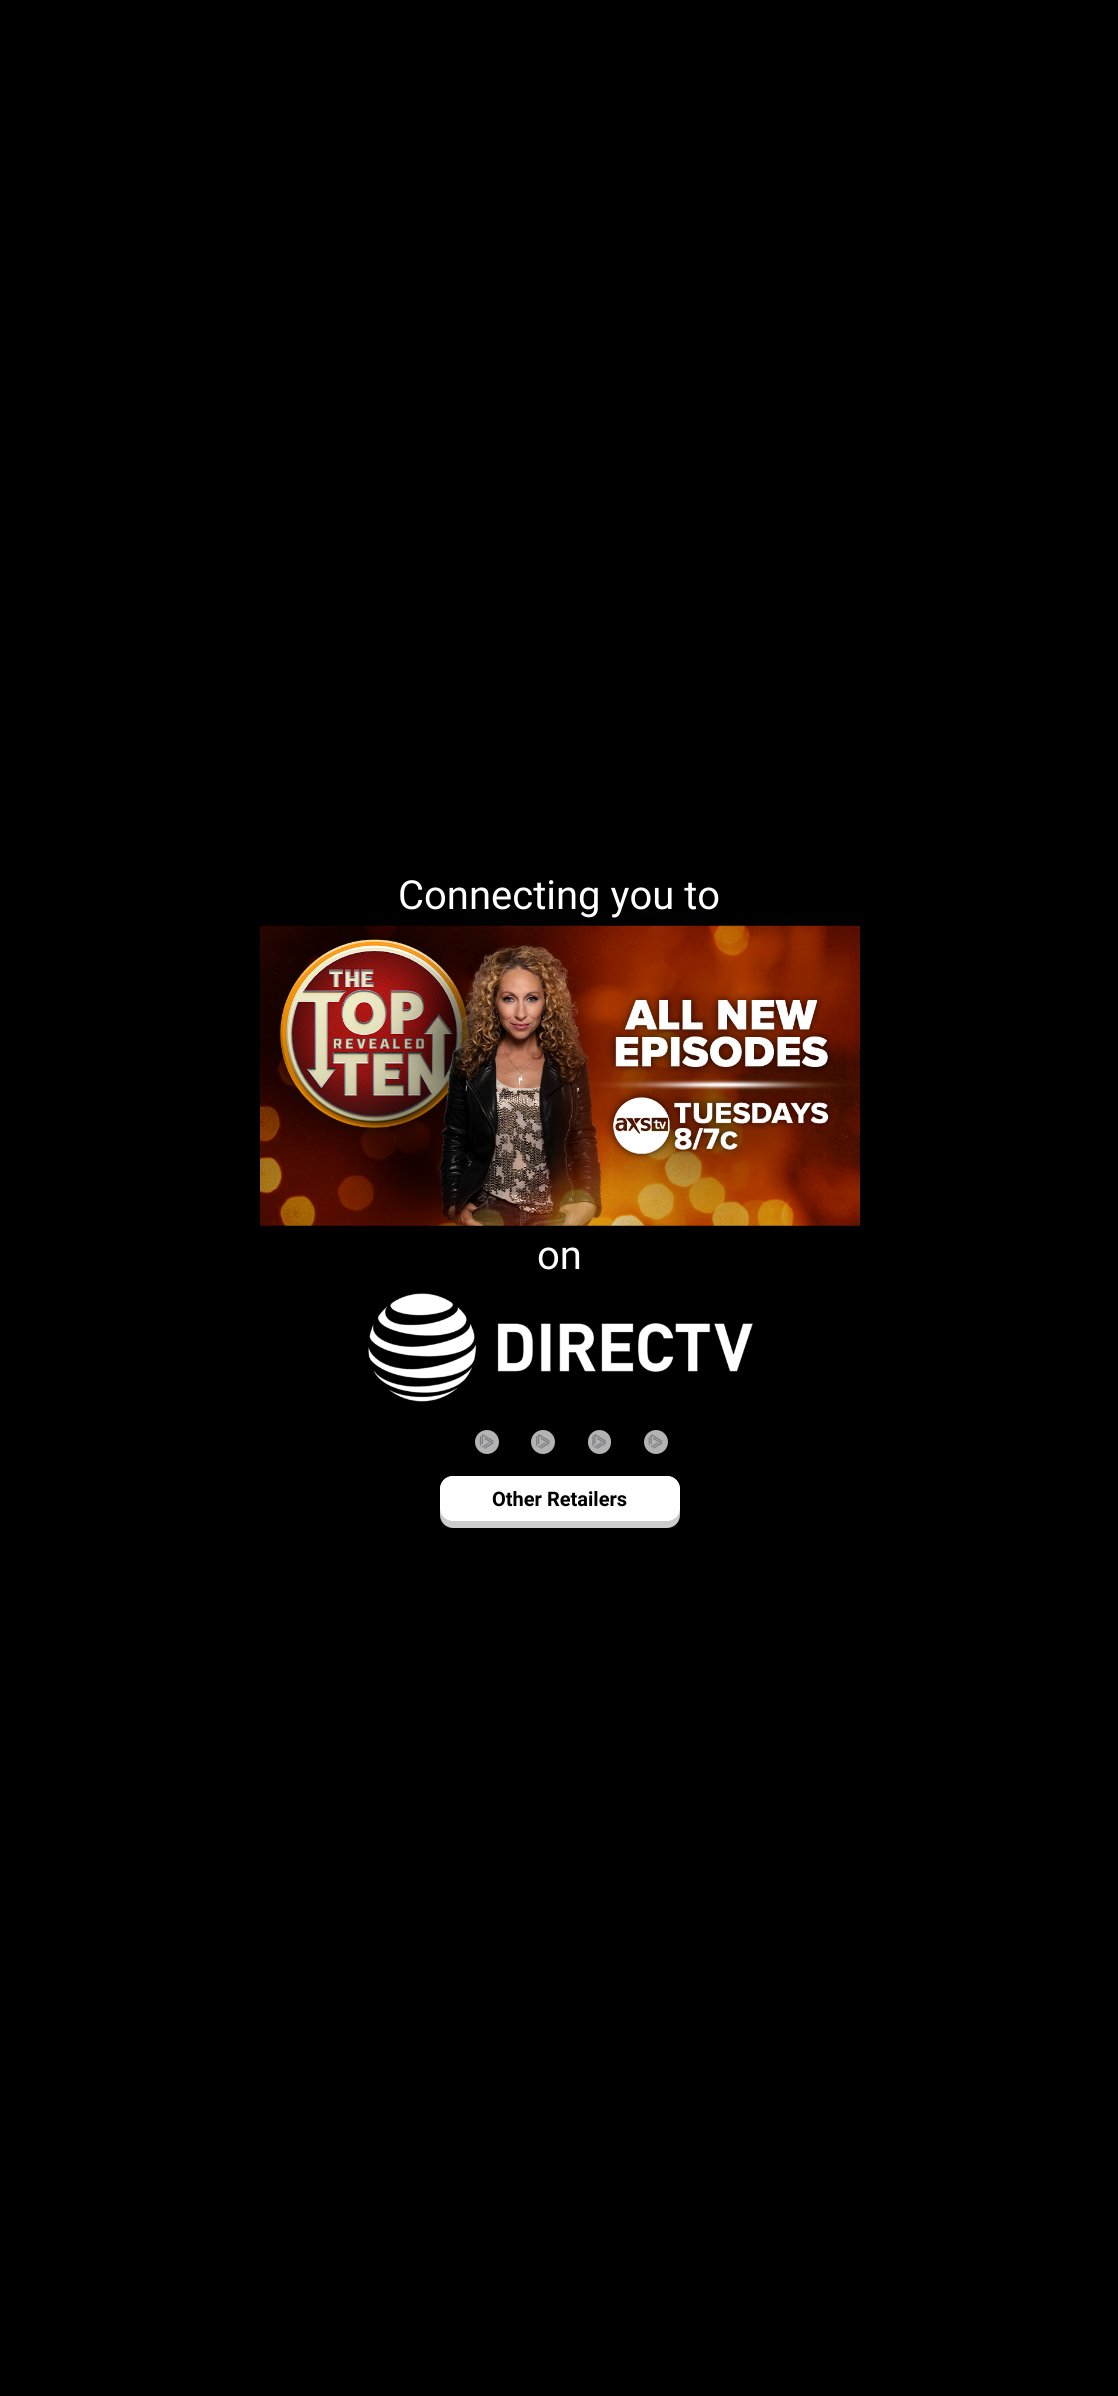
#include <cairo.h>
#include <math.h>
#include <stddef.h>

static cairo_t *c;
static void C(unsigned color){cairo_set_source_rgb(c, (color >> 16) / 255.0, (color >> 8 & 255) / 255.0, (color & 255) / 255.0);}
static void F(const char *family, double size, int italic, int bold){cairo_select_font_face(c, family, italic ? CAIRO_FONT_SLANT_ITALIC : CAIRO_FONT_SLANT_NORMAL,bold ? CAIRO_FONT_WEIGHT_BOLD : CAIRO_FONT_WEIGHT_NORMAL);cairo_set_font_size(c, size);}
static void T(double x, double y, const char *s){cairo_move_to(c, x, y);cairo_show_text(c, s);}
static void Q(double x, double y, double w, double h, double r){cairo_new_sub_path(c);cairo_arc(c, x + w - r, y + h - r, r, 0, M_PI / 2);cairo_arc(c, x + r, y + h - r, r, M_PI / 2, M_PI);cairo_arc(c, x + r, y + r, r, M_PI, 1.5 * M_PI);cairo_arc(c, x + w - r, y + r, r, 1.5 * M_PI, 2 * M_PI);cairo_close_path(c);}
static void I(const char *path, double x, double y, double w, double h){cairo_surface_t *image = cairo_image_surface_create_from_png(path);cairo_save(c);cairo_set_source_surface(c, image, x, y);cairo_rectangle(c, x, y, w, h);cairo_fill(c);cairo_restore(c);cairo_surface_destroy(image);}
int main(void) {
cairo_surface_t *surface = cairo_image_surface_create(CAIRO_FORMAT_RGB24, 1118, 2396);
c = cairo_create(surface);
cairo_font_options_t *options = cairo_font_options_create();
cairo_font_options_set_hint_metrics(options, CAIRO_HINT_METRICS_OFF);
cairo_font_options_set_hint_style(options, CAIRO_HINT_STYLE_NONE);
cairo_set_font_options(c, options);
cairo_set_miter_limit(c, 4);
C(0x000000);
cairo_paint(c);
F("Roboto",40,0,0);
C(0xffffff);
T(398,909,"Connecting you to");
I("1.png",260,925,600,301);
T(537,1269,"on");
I("2.png",368,1293,385,109);
C(0xb3b3b3);
cairo_arc(c,487,1442,12,0,2 * M_PI);
cairo_fill(c);
I("3.png",479,1434,15,15);
cairo_arc(c,543,1442,12,0,2 * M_PI);
cairo_fill(c);
I("4.png",536,1434,14,15);
Q(588,1430,23,24,11.5);
cairo_fill(c);
I("5.png",592,1434,15,15);
cairo_arc(c,656,1442,12,0,2 * M_PI);
cairo_fill(c);
I("6.png",648,1434,15,15);
C(0xcccccc);
Q(440,1476,240,52,13);
cairo_fill(c);
C(0xffffff);
Q(440,1476,240,45,13);
cairo_fill(c);
F("Heebo",20,0,1);
C(0x000000);
T(492,1506,"Other Retailers");
cairo_surface_write_to_png(surface, "o.png");
cairo_font_options_destroy(options);
cairo_destroy(c);
cairo_surface_destroy(surface);
return 0;
}
